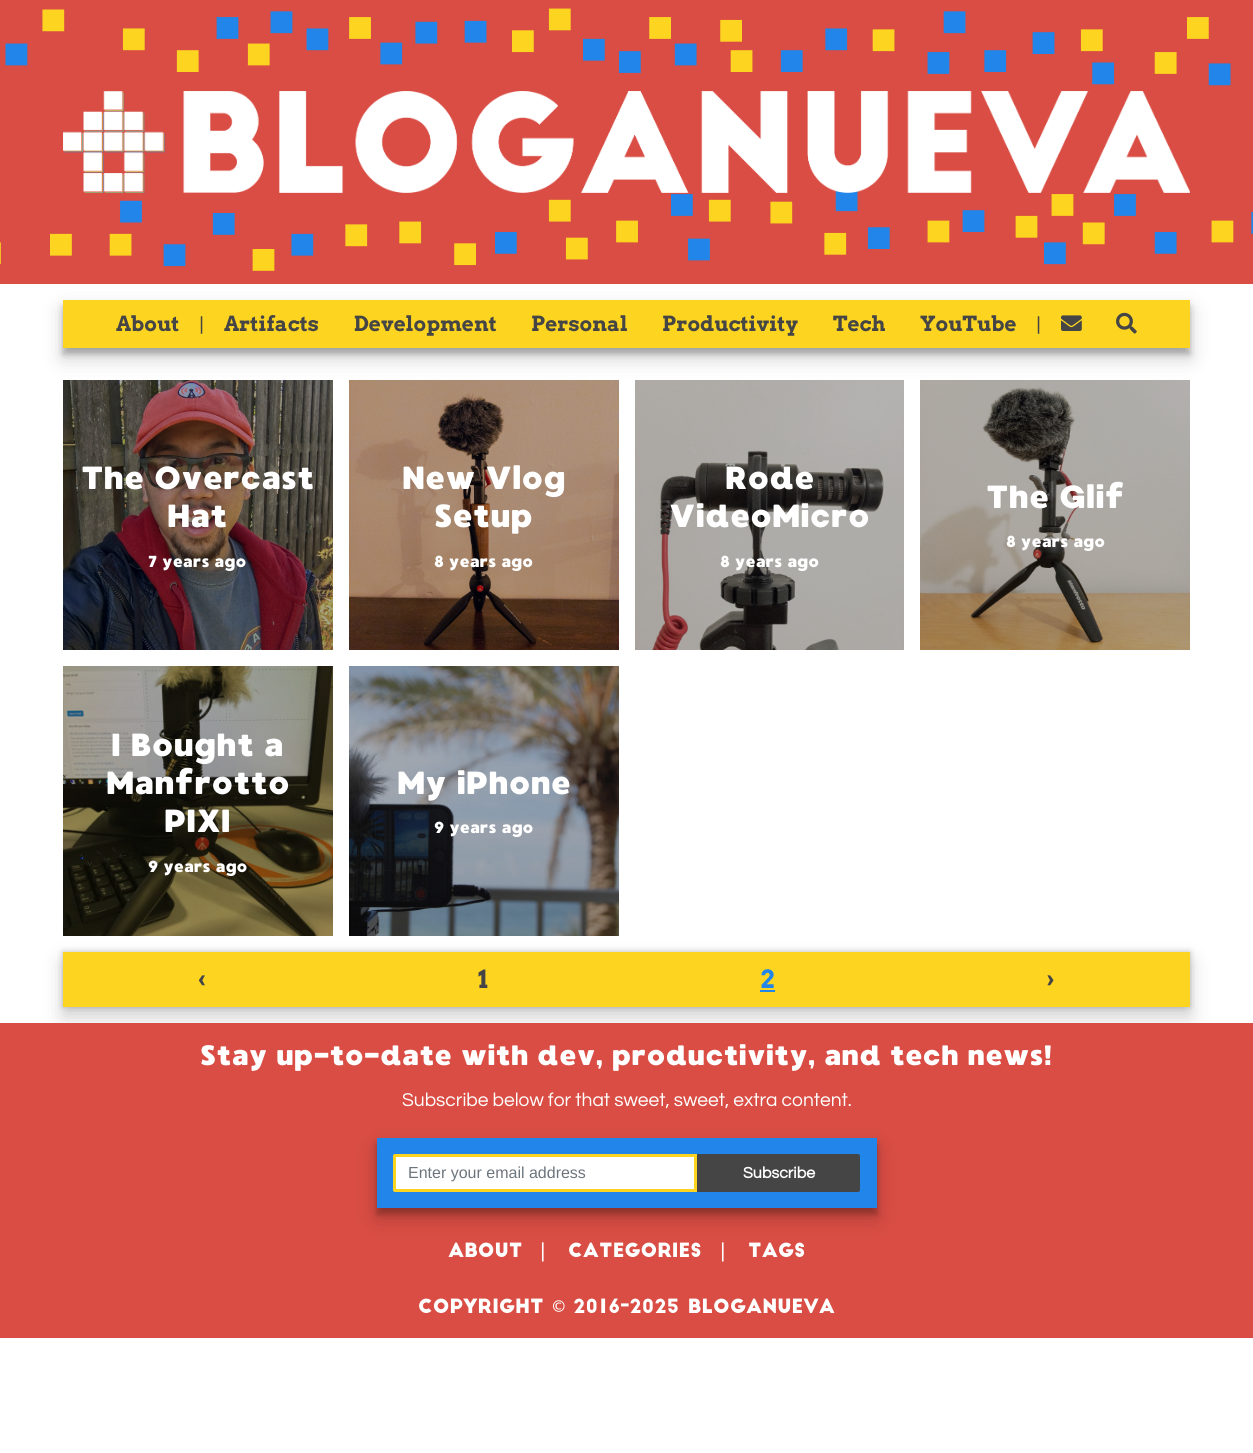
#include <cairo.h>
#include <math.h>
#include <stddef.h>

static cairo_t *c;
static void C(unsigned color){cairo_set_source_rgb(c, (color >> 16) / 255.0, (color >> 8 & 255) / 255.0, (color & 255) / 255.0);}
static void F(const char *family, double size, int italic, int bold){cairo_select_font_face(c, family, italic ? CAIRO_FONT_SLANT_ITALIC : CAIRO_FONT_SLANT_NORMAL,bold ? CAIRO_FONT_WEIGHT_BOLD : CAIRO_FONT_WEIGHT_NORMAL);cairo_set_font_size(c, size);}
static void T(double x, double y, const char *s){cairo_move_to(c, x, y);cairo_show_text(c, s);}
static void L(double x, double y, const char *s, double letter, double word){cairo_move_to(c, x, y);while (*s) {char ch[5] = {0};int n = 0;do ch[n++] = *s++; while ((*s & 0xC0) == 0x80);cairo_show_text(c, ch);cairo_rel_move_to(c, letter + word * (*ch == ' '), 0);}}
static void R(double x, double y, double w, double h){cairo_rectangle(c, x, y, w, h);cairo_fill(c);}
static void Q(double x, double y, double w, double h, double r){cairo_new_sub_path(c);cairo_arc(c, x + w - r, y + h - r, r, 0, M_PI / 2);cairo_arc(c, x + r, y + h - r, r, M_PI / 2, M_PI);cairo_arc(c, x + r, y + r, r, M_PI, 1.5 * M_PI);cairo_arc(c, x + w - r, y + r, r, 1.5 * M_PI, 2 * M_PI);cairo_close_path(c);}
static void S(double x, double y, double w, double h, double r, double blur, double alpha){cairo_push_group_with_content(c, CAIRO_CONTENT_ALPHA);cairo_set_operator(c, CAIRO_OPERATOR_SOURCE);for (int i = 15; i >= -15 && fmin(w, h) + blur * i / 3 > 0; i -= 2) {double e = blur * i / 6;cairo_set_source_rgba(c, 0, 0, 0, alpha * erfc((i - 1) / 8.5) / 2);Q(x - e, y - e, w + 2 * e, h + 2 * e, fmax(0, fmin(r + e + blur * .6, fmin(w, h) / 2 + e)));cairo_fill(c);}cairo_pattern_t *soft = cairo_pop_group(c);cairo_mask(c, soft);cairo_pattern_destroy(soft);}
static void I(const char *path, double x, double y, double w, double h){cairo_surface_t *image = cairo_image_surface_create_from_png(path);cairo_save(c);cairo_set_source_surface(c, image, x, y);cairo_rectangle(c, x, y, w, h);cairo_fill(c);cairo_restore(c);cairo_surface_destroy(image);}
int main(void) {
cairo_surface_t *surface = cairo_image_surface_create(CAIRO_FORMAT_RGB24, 1253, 1453);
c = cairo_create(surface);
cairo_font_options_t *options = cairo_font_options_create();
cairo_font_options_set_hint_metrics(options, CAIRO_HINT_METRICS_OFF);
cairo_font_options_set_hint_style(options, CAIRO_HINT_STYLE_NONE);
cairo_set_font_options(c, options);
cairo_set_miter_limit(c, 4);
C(0xffffff);
cairo_paint(c);
C(0x000000);
S(63,310,1127,48,0,10,.19);
I("1.png",0,0,1253,284);
I("2.png",63,91,1127,102);
S(63,306,1127,48,0,3,.23);
C(0xfdd521);
R(63,300,1127,48);
F("Arvo",20.75,0,1);
C(0x454545);
T(116,331,"About");
F("Roboto",20.75,0,0);
T(199,331,"|");
F("Arvo",20.75,0,1);
T(224,331,"Artifacts");
T(354,331,"Development");
T(531,331,"Personal");
T(662,331,"Productivity");
T(833,331,"Tech");
T(920,331,"YouTube");
F("Roboto",20.75,0,0);
T(1036,331,"|");
I("3.png",1061,315,21,16);
I("4.png",1116,312,21,22);
I("5.png",63,380,270,270);
F("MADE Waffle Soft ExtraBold",32,0,0);
C(0xffffff);
T(81,489,"The Overcast");
T(167,527,"Hat");
F("MADE Waffle Soft ExtraBold",16,0,0);
T(148,567,"7 years ago");
I("6.png",349,380,270,270);
F("MADE Waffle Soft ExtraBold",32,0,0);
T(402,489,"New Vlog");
T(434,527,"Setup");
F("MADE Waffle Soft ExtraBold",16,0,0);
T(434,567,"8 years ago");
I("7.png",635,380,269,270);
F("MADE Waffle Soft ExtraBold",32,0,0);
T(725,489,"Rode");
T(669,527,"VideoMicro");
F("MADE Waffle Soft ExtraBold",16,0,0);
T(720,567,"8 years ago");
I("8.png",920,380,270,270);
F("MADE Waffle Soft ExtraBold",32,0,0);
T(986,508,"The Glif");
F("MADE Waffle Soft ExtraBold",16,0,0);
T(1006,547,"8 years ago");
C(0x000000);
S(63,962,1127,55,0,10,.19);
I("9.png",63,666,270,270);
F("MADE Waffle Soft ExtraBold",32,0,0);
C(0xffffff);
T(111,756,"I Bought a");
T(106,794,"Manfrotto");
T(164,832,"PIXI");
F("MADE Waffle Soft ExtraBold",16,0,0);
T(148,872,"9 years ago");
I("10.png",349,666,270,270);
F("MADE Waffle Soft ExtraBold",32,0,0);
T(397,794,"My iPhone");
F("MADE Waffle Soft ExtraBold",16,0,0);
T(434,833,"9 years ago");
C(0x000000);
S(63,952,1127,55,0,3,.23);
C(0xfdd521);
R(63,952,1127,55);
F("Arvo",25,0,1);
C(0x454545);
L(198,988,"‹",1,0);
L(478,988,"1",1,0);
C(0x2185e9);
L(760,988,"2",1,0);
R(760,990,15,2);
C(0x454545);
L(1047,988,"›",1,0);
C(0xd94d44);
R(0,1023,1253,315);
F("MADE Waffle Soft ExtraBold",28,0,0);
C(0xffffff);
T(200,1065,"Stay up-to-date with dev, productivity, and tech news!");
F("Questrial",19.2,0,0);
T(402,1106,"Subscribe below for that sweet, sweet, extra content.");
C(0x000000);
S(377,1144,500,70,0,3,.23);
S(377,1148,500,70,0,10,.19);
C(0x2185e9);
R(377,1138,500,70);
C(0xffffff);
cairo_new_path(c);
cairo_move_to(c,395,1155.5);
cairo_line_to(c,695.5,1155.5);
cairo_line_to(c,695.5,1190.5);
cairo_line_to(c,395,1190.5);
cairo_curve_to(c,394.5,1190.5,394.5,1190.5,394.5,1190);
cairo_line_to(c,394.5,1156);
cairo_curve_to(c,394.5,1155.5,394.5,1155.5,395,1155.5);
cairo_close_path(c);
cairo_fill_preserve(c);
C(0xfdd521);
cairo_set_line_width(c,3);
cairo_stroke(c);
F("Liberation Sans",16,0,0);
C(0x6c757d);
T(408,1178,"Enter your email address");
C(0x454545);
cairo_new_path(c);
cairo_move_to(c,697,1154);
cairo_line_to(c,858,1154);
cairo_curve_to(c,859,1154,860,1155,860,1156);
cairo_line_to(c,860,1190);
cairo_curve_to(c,860,1191,859,1192,858,1192);
cairo_line_to(c,697,1192);
cairo_close_path(c);
cairo_fill(c);
F("Questrial",16,0,1);
C(0xffffff);
T(743,1178,"Subscribe");
F("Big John",19.2,0,0);
T(448,1257,"About");
F("DejaVu Sans Mono",19.2,0,0);
T(537,1257,"|");
F("Big John",19.2,0,0);
T(568,1257,"Categories");
F("DejaVu Sans Mono",19.2,0,0);
T(717,1257,"|");
F("Big John",19.2,0,0);
T(748,1257,"Tags");
T(418,1313,"Copyright");
F("DejaVu Sans Mono",19.2,0,0);
T(553,1313,"©");
F("Big John",19.2,0,0);
T(573,1313,"2016-2025 Bloganueva");
cairo_surface_write_to_png(surface, "o.png");
cairo_font_options_destroy(options);
cairo_destroy(c);
cairo_surface_destroy(surface);
return 0;
}
